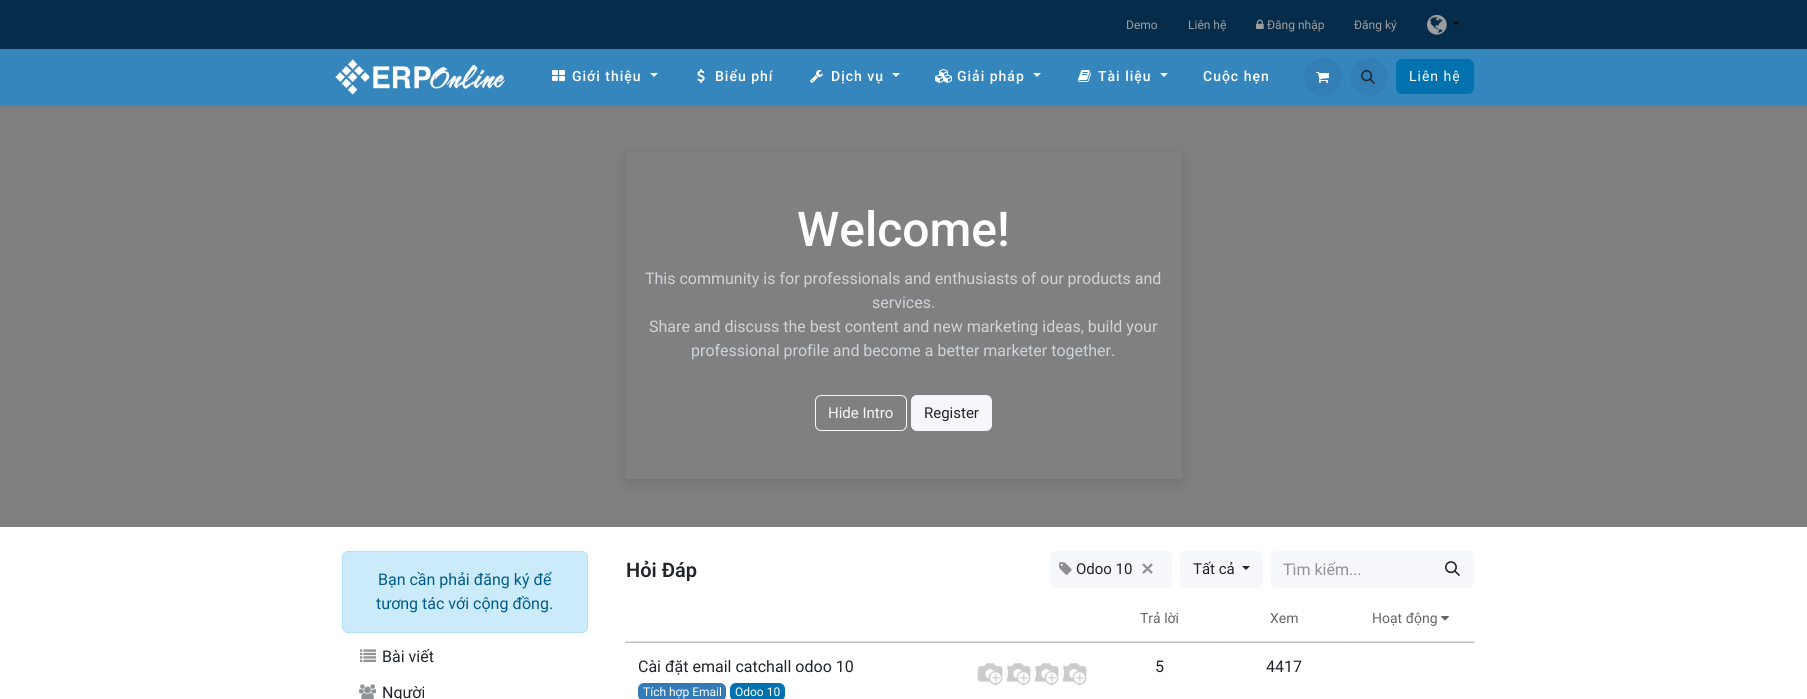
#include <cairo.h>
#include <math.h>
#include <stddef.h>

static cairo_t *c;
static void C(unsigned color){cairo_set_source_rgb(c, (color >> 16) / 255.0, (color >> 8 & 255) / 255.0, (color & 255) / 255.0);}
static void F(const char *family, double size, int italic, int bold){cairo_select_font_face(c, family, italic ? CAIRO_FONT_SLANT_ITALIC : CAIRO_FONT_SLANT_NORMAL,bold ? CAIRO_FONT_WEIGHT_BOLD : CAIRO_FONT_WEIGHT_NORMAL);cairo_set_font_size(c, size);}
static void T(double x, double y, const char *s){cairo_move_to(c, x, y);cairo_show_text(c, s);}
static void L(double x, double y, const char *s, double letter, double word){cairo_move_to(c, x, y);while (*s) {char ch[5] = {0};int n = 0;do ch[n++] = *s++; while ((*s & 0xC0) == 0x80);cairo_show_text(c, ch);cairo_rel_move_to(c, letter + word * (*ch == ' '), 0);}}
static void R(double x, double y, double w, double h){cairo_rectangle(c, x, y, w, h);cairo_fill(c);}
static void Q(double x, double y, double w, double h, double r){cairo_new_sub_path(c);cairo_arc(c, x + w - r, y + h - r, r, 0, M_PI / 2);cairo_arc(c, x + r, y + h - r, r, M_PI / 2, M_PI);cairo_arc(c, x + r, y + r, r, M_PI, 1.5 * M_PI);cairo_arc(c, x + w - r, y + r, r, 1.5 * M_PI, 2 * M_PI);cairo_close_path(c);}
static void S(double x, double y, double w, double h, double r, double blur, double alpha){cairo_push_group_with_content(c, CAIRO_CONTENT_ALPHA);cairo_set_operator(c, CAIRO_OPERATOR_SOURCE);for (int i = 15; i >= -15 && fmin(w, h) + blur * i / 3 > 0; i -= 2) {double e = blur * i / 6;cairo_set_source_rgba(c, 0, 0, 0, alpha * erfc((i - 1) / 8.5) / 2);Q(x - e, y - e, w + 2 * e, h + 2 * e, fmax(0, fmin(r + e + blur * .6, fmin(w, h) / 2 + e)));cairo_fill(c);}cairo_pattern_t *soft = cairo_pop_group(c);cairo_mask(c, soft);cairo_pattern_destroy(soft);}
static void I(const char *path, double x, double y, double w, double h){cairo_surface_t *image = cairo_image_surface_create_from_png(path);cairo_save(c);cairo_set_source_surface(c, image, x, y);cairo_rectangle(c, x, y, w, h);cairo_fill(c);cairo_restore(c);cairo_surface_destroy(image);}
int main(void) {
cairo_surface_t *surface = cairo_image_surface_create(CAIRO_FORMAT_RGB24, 1807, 699);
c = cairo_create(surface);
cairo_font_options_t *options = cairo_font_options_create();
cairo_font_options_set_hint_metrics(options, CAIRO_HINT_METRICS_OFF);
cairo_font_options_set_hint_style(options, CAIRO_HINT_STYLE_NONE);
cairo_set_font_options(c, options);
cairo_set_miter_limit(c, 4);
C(0xffffff);
cairo_paint(c);
C(0xdededf);
R(625,641,850,2);
C(0xc2c2c4);
R(626,642,848,1);
C(0xaaaaad);
R(926,642,1,1);
R(1096,642,1,1);
R(1221,642,1,1);
C(0x808080);
R(0,105,1807,422);
C(0x000000);
S(0,50,1807,56,0,1.5,.1);
C(0x052d4b);
R(0,0,1807,49);
F("Roboto",12,0,0);
C(0x9d9d9d);
T(1126,29,"Demo");
T(1188,29,"Liên hệ");
I("1.png",1256,19,8,10);
T(1267,29,"Đăng nhập");
T(1354,29,"Đăng ký");
I("2.png",1427,14,20,21);
C(0x000000);
cairo_new_path(c);
cairo_move_to(c,1453,22);
cairo_line_to(c,1459,22);
cairo_line_to(c,1456,25);
cairo_close_path(c);
cairo_fill(c);
C(0x3686be);
R(0,49,1807,56);
I("3.png",335,59,170,36);
I("4.png",552,70,13,11);
F("Roboto Medium",14,0,0);
C(0xffffff);
L(572,81,"Giới thiệu",1,0);
cairo_new_path(c);
cairo_move_to(c,650,73);
cairo_line_to(c,658,73);
cairo_line_to(c,654,77);
cairo_close_path(c);
cairo_fill(c);
I("5.png",697,69,8,14);
L(715,81,"Biểu phí",1,0);
I("6.png",810,70,13,13);
L(831,81,"Dịch vụ",1,0);
cairo_new_path(c);
cairo_move_to(c,892,73);
cairo_line_to(c,900,73);
cairo_line_to(c,896,77);
cairo_close_path(c);
cairo_fill(c);
I("7.png",935,69,17,14);
L(957,81,"Giải pháp",1,0);
cairo_new_path(c);
cairo_move_to(c,1033,73);
cairo_line_to(c,1041,73);
cairo_line_to(c,1037,77);
cairo_close_path(c);
cairo_fill(c);
I("8.png",1078,70,13,12);
L(1098,81,"Tài liệu",1,0);
cairo_new_path(c);
cairo_move_to(c,1160,73);
cairo_line_to(c,1168,73);
cairo_line_to(c,1164,77);
cairo_close_path(c);
cairo_fill(c);
L(1203,81,"Cuộc hẹn",1,0);
C(0x337fb5);
cairo_new_path(c);
cairo_arc(c,1323,77,19,0,2 * M_PI);
cairo_fill(c);
I("9.png",1316,72,13,11);
cairo_arc(c,1369,77,19,0,2 * M_PI);
cairo_fill(c);
I("10.png",1361,70,14,14);
C(0x0172ad);
Q(1396.5,59.5,77,34,5.5);
cairo_fill_preserve(c);
cairo_set_line_width(c,1);
cairo_stroke(c);
F("Roboto",14,0,0);
C(0xffffff);
L(1409,81,"Liên hệ",1,0);
cairo_save(c);
cairo_set_fill_rule(c,CAIRO_FILL_RULE_EVEN_ODD);
cairo_new_path(c);
cairo_move_to(c,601,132);
cairo_line_to(c,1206,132);
cairo_line_to(c,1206,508);
cairo_line_to(c,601,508);
cairo_close_path(c);
cairo_move_to(c,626,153);
cairo_line_to(c,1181,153);
cairo_line_to(c,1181,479);
cairo_line_to(c,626,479);
cairo_close_path(c);
cairo_clip(c);
C(0x000000);
S(626,157,555,326,0,8,.12);
cairo_restore(c);
F("Roboto Medium",48,0,0);
T(797,246,"Welcome!");
F("Roboto",16,0,0);
C(0xced4da);
T(645,284,"This community is for professionals and enthusiasts of our products and");
T(872,308,"services.");
T(649,332,"Share and discuss the best content and new marketing ideas, build your");
T(691,356,"professional profile and become a better marketer together.");
Q(815.5,395.5,91,35,5.5);
C(0xf6f7fa);
cairo_stroke(c);
F("Roboto",15,0,0);
T(828,418,"Hide Intro");
Q(911.5,395.5,80,35,5.5);
cairo_fill_preserve(c);
cairo_stroke(c);
C(0x212529);
T(924,418,"Register");
C(0xccebfa);
Q(342.5,551.5,245,81,5.5);
cairo_fill_preserve(c);
C(0xb3e0f8);
cairo_stroke(c);
F("Roboto",16,0,0);
C(0x005c8a);
T(378,585,"Bạn cần phải đăng ký để");
T(376,609,"tương tác với cộng đồng.");
I("11.png",360,649,16,13);
C(0x212529);
T(382,662,"Bài viết");
I("12.png",359,684,18,15);
T(382,698,"Người");
F("Roboto SemiBold",20,0,0);
T(626,577,"Hỏi Đáp");
C(0xf6f7fa);
Q(1050,551,122,37,6);
cairo_fill(c);
I("13.png",1059,562,13,13);
F("Roboto",15,0,0);
C(0x212529);
T(1076,574,"Odoo 10");
I("14.png",1142,563,11,11);
C(0xf6f7fa);
Q(1180,551,83,37,6);
cairo_fill(c);
C(0x212529);
T(1193,574,"Tất cả");
cairo_new_path(c);
cairo_move_to(c,1242,566);
cairo_line_to(c,1250,566);
cairo_line_to(c,1246,570);
cairo_close_path(c);
cairo_fill(c);
C(0xf6f7fa);
cairo_new_path(c);
cairo_move_to(c,1277,551);
cairo_line_to(c,1433,551);
cairo_line_to(c,1433,588);
cairo_line_to(c,1277,588);
cairo_curve_to(c,1273.5,588,1271,585.5,1271,582);
cairo_line_to(c,1271,557);
cairo_curve_to(c,1271,553.5,1273.5,551,1277,551);
cairo_close_path(c);
cairo_fill(c);
F("Roboto",16,0,0);
C(0x909294);
T(1283,575,"Tìm kiếm...");
C(0xf6f7fa);
cairo_new_path(c);
cairo_move_to(c,1432,551);
cairo_line_to(c,1468,551);
cairo_curve_to(c,1471.5,551,1474,553.5,1474,557);
cairo_line_to(c,1474,582);
cairo_curve_to(c,1474,585.5,1471.5,588,1468,588);
cairo_line_to(c,1432,588);
cairo_close_path(c);
cairo_fill(c);
I("15.png",1445,561,15,15);
F("Roboto",14,0,0);
C(0x646669);
T(1140,623,"Trả lời");
T(1270,623,"Xem");
C(0xaaaaad);
R(1346,642,1,1);
C(0x646669);
T(1372,623,"Hoạt động");
I("16.png",1441,616,8,5);
F("Roboto",16,0,0);
C(0x212529);
T(638,672,"Cài đặt email catchall odoo 10");
C(0x337ab7);
Q(638,683,88,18,6);
cairo_fill(c);
F("Roboto",12,0,0);
C(0xffffff);
T(643,696,"Tích hợp Email");
C(0x0172ad);
Q(730,683,55,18,6);
cairo_fill(c);
C(0xffffff);
T(735,696,"Odoo 10");
I("17.png",1061,663,26,22);
cairo_arc(c,1046,673,17,0,2 * M_PI);
cairo_set_line_width(c,2);
cairo_stroke(c);
I("18.png",1033,663,26,22);
cairo_arc(c,1018,673,17,0,2 * M_PI);
cairo_stroke(c);
I("17.png",1005,663,26,22);
cairo_arc(c,990,673,17,0,2 * M_PI);
cairo_stroke(c);
I("17.png",977,663,26,22);
F("Roboto",16,0,0);
C(0x212529);
T(1155,672,"5");
T(1266,672,"4417");
cairo_surface_write_to_png(surface, "o.png");
cairo_font_options_destroy(options);
cairo_destroy(c);
cairo_surface_destroy(surface);
return 0;
}
